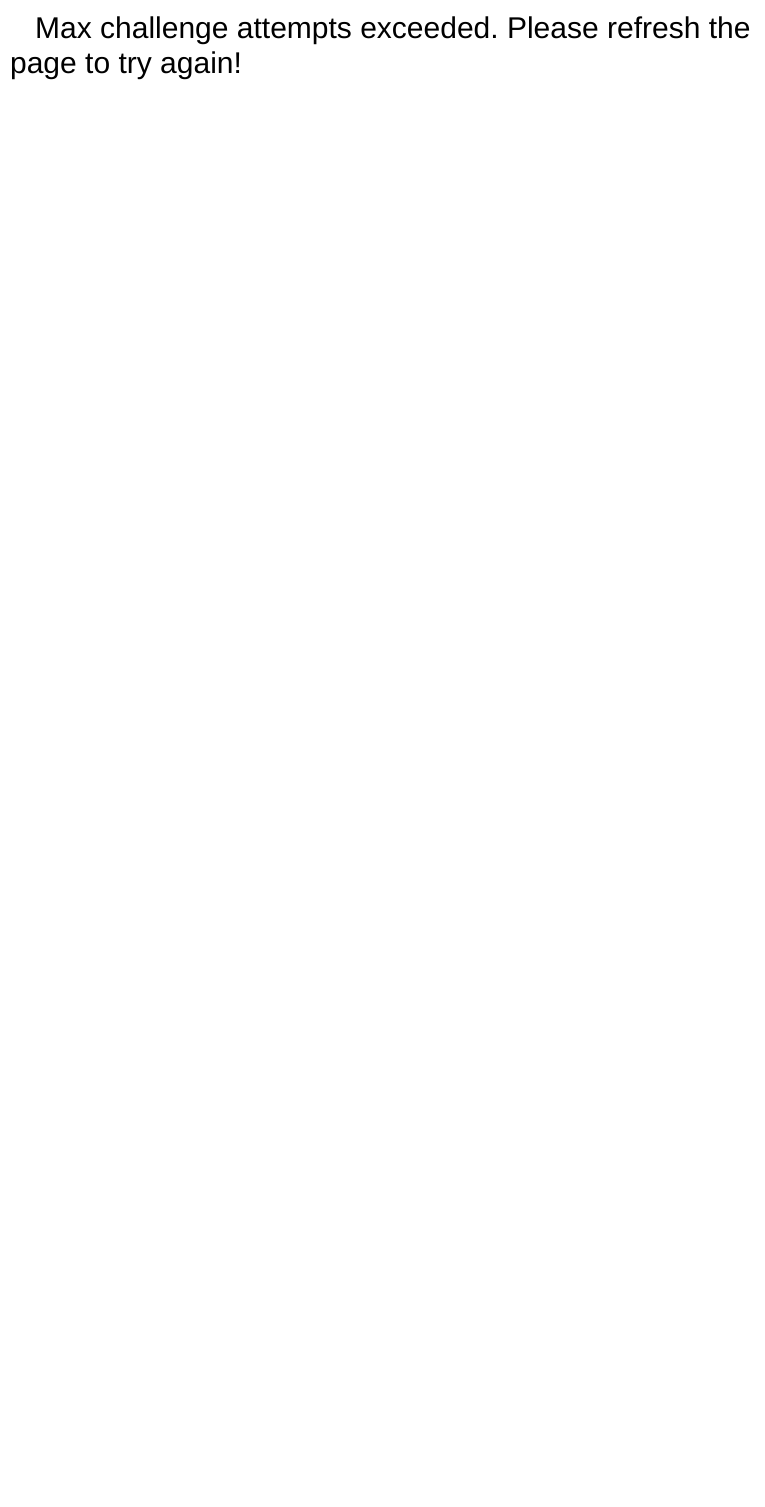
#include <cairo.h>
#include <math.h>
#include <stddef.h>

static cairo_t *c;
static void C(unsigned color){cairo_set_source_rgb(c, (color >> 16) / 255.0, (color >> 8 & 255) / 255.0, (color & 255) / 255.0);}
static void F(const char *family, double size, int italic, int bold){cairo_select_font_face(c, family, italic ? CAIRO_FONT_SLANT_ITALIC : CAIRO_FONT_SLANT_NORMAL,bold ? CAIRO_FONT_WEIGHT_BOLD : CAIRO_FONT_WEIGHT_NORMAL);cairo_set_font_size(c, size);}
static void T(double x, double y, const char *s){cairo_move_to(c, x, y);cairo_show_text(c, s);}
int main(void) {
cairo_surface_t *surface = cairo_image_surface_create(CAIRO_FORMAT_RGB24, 765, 1507);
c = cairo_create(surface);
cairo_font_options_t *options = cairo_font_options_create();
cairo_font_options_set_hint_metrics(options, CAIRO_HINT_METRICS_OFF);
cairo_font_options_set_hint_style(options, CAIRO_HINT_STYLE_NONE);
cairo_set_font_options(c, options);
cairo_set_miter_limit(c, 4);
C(0xffffff);
cairo_paint(c);
F("Liberation Sans",30,0,0);
C(0x000000);
T(35,38,"Max challenge attempts exceeded. Please refresh the");
T(10,73,"page to try again!");
cairo_surface_write_to_png(surface, "o.png");
cairo_font_options_destroy(options);
cairo_destroy(c);
cairo_surface_destroy(surface);
return 0;
}
